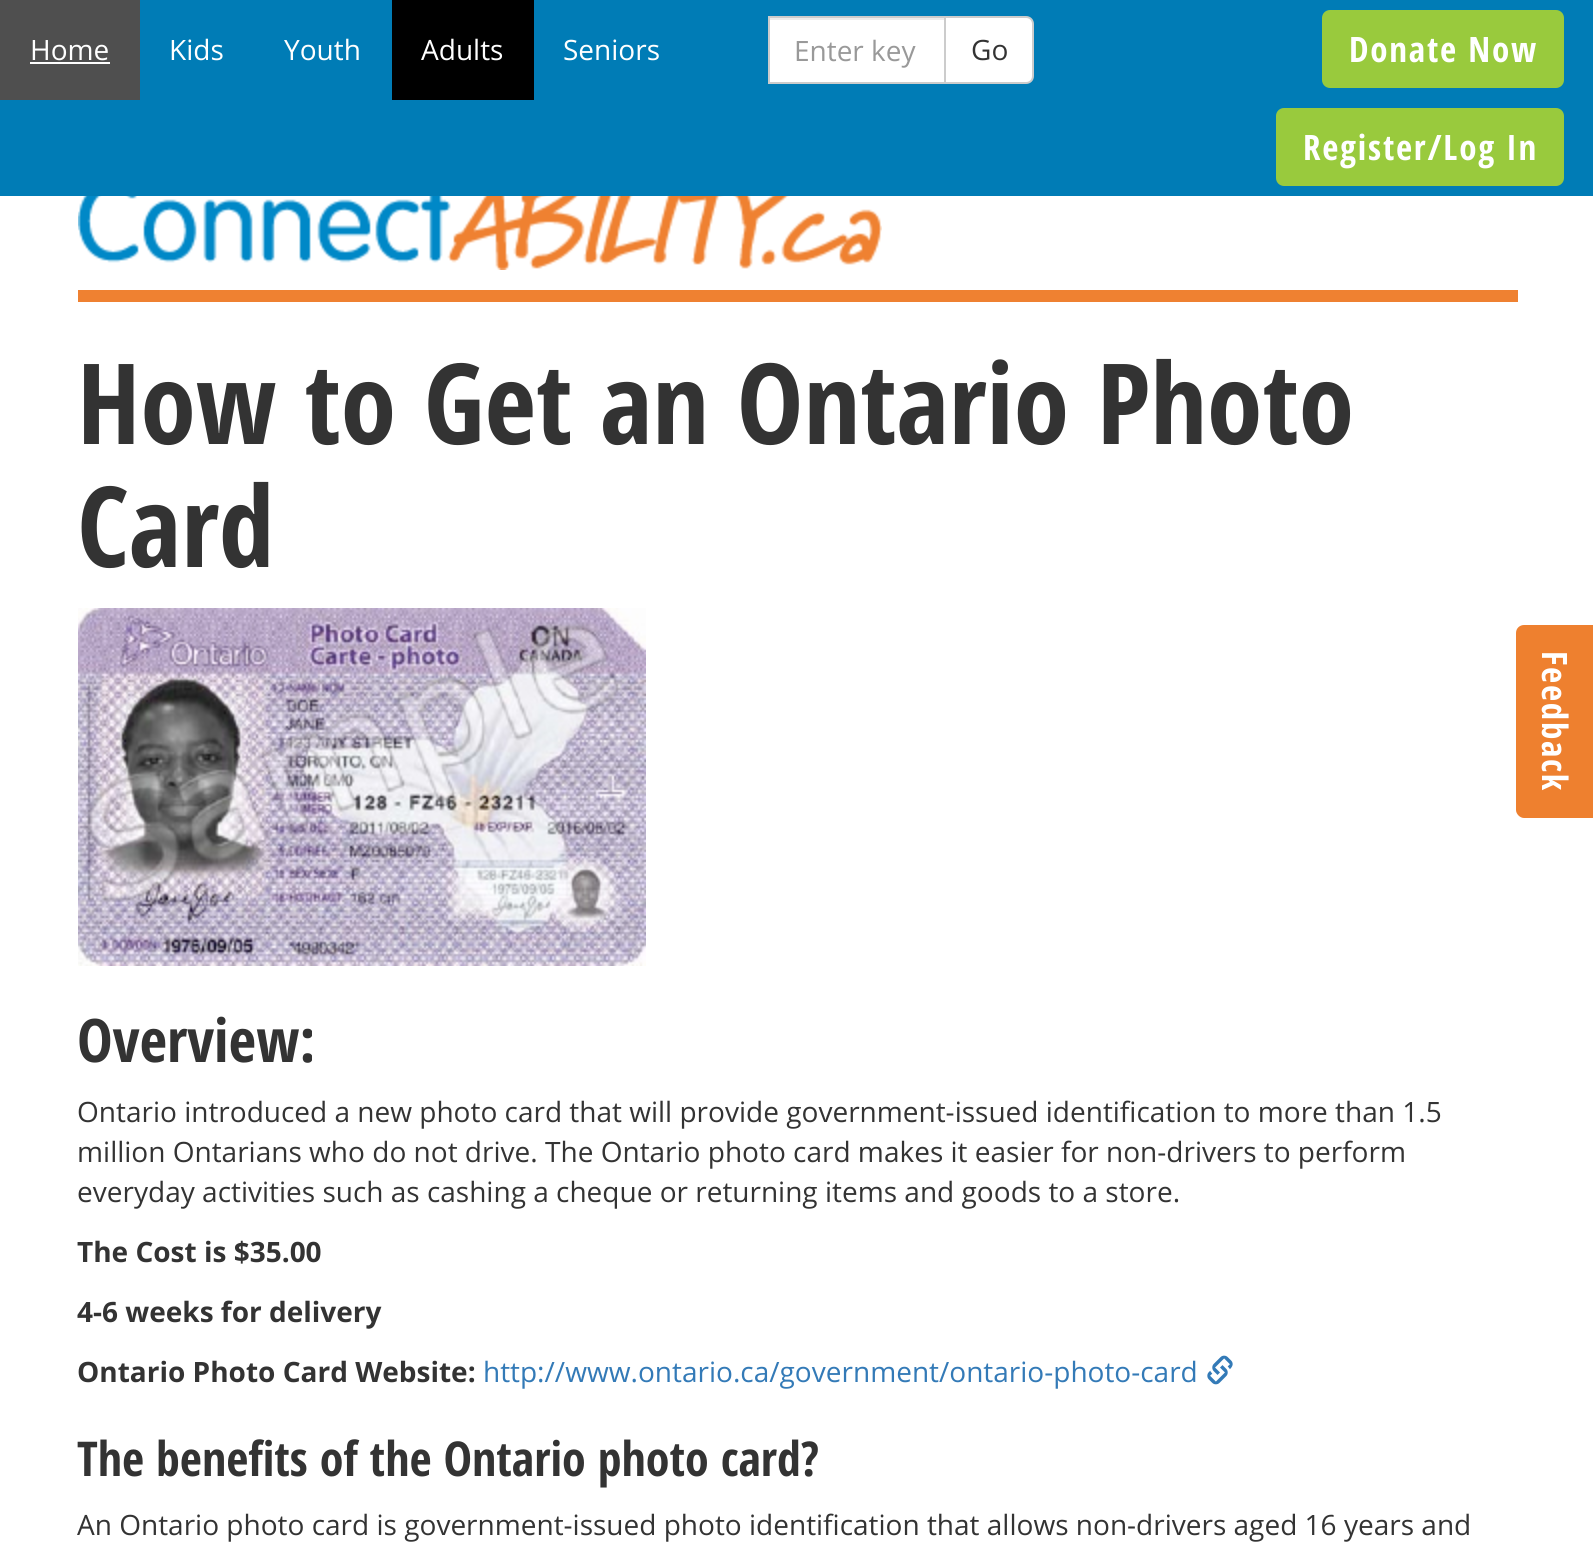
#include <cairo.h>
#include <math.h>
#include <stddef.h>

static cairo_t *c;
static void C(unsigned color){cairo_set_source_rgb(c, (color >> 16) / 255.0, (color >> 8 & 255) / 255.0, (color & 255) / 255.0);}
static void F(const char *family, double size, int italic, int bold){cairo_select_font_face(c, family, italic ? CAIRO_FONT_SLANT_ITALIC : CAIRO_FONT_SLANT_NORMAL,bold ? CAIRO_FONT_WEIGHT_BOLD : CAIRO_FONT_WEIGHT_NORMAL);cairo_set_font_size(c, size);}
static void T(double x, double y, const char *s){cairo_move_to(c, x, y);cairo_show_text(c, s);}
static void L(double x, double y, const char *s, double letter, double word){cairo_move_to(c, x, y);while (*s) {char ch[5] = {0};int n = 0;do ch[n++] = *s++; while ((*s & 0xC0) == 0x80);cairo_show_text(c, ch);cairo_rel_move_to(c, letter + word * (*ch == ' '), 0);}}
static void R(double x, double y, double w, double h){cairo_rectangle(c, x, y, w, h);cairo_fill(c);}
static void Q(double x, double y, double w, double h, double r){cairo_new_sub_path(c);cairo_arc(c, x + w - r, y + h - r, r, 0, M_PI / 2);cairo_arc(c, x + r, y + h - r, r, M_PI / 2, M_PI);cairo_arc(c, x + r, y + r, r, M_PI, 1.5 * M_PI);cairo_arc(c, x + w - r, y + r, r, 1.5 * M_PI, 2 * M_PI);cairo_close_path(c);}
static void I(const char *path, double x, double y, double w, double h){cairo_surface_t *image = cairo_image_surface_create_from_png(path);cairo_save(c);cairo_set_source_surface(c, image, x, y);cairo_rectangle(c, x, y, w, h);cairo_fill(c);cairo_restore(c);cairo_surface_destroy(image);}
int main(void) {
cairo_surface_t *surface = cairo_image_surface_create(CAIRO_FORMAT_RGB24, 1593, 1561);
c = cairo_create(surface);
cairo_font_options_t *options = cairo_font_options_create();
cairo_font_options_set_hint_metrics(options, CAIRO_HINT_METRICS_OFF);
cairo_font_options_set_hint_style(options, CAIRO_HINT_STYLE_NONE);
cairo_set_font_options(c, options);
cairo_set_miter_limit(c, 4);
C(0xffffff);
cairo_paint(c);
C(0x007cb6);
R(0,0,1593,196);
C(0x4f4f4f);
R(0,0,140,100);
F("Open Sans",28,0,0);
C(0xffffff);
T(30,60,"Home");
R(30,62,80,2);
T(169,60,"Kids");
T(284,60,"Youth");
C(0x000000);
R(392,0,142,100);
C(0xffffff);
T(421,60,"Adults");
T(563,60,"Seniors");
R(770,20,174,62);
C(0xececec);
R(770,18,174,2);
cairo_rectangle(c,769,17,176,66);
C(0xcccccc);
cairo_stroke(c);
C(0x999999);
T(794,61,"Enter key");
C(0xffffff);
cairo_new_path(c);
cairo_move_to(c,945,17);
cairo_line_to(c,1026,17);
cairo_curve_to(c,1030,17,1033,20,1033,24);
cairo_line_to(c,1033,76);
cairo_curve_to(c,1033,80,1030,83,1026,83);
cairo_line_to(c,945,83);
cairo_close_path(c);
cairo_fill_preserve(c);
C(0xcccccc);
cairo_stroke(c);
C(0x333333);
T(971,60,"Go");
C(0x99ca3d);
Q(1322,10,242,78,8);
cairo_fill(c);
F("Open Sans Condensed",35,0,1);
C(0xffffff);
L(1349,62,"Donate Now",1.75,0);
C(0x99ca3d);
Q(1276,108,288,78,8);
cairo_fill(c);
C(0xffffff);
L(1303,160,"Register/Log In",1.75,0);
C(0xef8131);
R(78,290,1440,12);
I("1.png",78,196,804,74);
F("Open Sans Condensed",112,0,1);
C(0x333333);
T(77,444,"How to Get an Ontario Photo");
T(77,567,"Card");
I("2.png",78,608,568,358);
F("Open Sans Condensed",60,0,1);
T(77,1062,"Overview:");
F("Open Sans",28,0,0);
T(77,1122,"Ontario introduced a new photo card that will provide government-issued identification to more than 1.5");
T(77,1162,"million Ontarians who do not drive. The Ontario photo card makes it easier for non-drivers to perform");
T(77,1202,"everyday activities such as cashing a cheque or returning items and goods to a store.");
F("Open Sans",28,0,1);
T(77,1262,"The Cost is $35.00");
T(77,1322,"4-6 weeks for delivery");
T(77,1382,"Ontario Photo Card Website:");
F("Open Sans",28,0,0);
C(0x337ab7);
T(483,1382,"http://www.ontario.ca/government/ontario-photo-card");
I("3.png",1207,1355,26,30);
F("Open Sans Condensed",48,0,1);
C(0x333333);
T(77,1476,"The benefits of the Ontario photo card?");
F("Open Sans",28,0,0);
T(77,1535,"An Ontario photo card is government-issued photo identification that allows non-drivers aged 16 years and");
C(0xee802f);
cairo_new_path(c);
cairo_move_to(c,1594,625);
cairo_line_to(c,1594,818);
cairo_line_to(c,1524,818);
cairo_curve_to(c,1520,818,1516,814,1516,810);
cairo_line_to(c,1516,633);
cairo_curve_to(c,1516,628,1520,625,1524,625);
cairo_close_path(c);
cairo_fill(c);
F("Open Sans Condensed",35,0,1);
C(0xffffff);
cairo_save(c);
cairo_translate(c,1542,651);
cairo_rotate(c,90 * M_PI / 180);
L(0,0,"Feedback",1.75,0);
cairo_restore(c);
cairo_surface_write_to_png(surface, "o.png");
cairo_font_options_destroy(options);
cairo_destroy(c);
cairo_surface_destroy(surface);
return 0;
}
